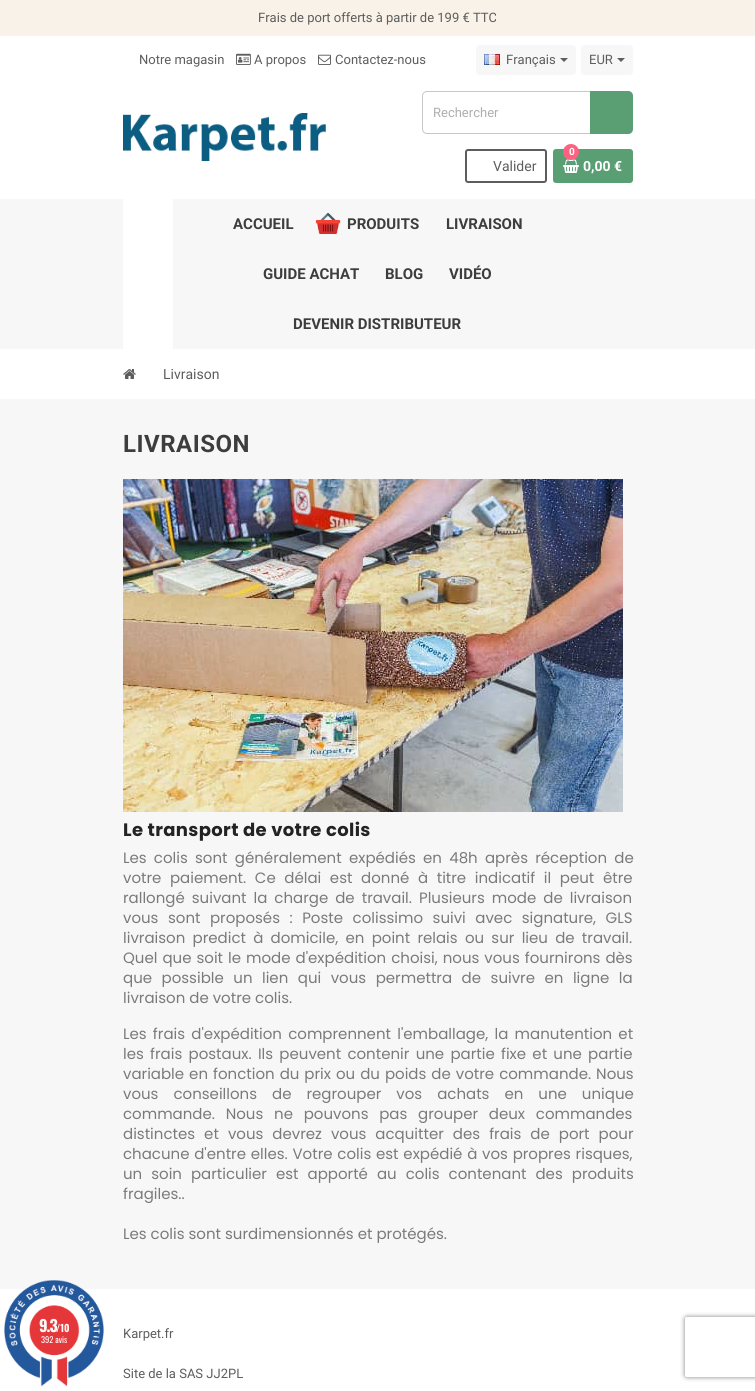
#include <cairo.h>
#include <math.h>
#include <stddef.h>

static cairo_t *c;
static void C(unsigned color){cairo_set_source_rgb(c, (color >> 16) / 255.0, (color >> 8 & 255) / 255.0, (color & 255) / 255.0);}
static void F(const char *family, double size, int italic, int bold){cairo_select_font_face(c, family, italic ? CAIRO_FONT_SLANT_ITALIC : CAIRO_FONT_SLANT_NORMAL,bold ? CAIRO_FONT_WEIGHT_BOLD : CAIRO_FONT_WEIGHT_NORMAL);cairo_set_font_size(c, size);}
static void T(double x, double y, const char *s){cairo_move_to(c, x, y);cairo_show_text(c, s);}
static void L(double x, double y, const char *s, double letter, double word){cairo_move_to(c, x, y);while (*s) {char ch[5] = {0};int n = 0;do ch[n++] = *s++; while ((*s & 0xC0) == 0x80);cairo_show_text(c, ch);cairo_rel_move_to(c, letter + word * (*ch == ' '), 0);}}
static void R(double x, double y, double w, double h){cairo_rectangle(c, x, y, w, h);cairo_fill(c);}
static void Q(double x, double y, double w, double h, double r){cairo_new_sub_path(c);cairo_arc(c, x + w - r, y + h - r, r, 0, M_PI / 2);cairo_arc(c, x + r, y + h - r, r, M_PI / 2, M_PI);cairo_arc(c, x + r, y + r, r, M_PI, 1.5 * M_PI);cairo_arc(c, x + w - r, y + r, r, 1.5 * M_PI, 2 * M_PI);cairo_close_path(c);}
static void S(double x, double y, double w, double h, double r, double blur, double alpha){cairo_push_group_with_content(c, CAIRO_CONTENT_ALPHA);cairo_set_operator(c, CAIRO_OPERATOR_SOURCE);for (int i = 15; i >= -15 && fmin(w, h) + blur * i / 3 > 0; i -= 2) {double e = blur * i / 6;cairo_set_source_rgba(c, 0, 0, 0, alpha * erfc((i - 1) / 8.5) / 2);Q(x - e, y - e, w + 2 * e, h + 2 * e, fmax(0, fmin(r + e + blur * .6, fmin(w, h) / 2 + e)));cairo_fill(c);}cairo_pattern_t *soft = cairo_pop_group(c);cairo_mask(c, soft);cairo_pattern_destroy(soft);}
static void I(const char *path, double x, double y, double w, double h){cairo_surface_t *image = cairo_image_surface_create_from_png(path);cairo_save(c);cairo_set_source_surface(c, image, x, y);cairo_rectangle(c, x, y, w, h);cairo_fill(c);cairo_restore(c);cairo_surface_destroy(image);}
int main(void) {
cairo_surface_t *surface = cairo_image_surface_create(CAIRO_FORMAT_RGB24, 755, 1391);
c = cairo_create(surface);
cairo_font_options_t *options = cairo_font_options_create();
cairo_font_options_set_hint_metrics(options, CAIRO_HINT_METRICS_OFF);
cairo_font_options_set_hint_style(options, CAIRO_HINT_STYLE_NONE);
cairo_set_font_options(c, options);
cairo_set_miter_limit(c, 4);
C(0xffffff);
cairo_paint(c);
C(0xf7f7f7);
R(0,399,755,890);
I("1.png",4,1280,100,107);
F("Oswald",16,0,1);
C(0xfef9f9);
L(39,1332,"9.3",-1,0);
F("Oswald",10,0,1);
T(56,1332,"/10");
F("Oswald",8.5,0,0);
T(41,1343,"392 avis");
C(0xf9f2e8);
R(0,0,755,36);
F("Roboto",13,0,0);
C(0x5d5d5d);
T(258,22,"Frais de port offerts à partir de 199 € TTC");
T(139,64,"Notre magasin");
I("2.png",236,53,15,12);
T(254,64,"A propos");
I("3.png",318,54,13,11);
T(335,64,"Contactez-nous");
C(0xf7f7f7);
Q(476,45,100,30,3);
cairo_fill(c);
I("4.png",484,54,16,11);
C(0x5d5d5d);
T(506,64,"Français");
cairo_new_path(c);
cairo_move_to(c,560,58);
cairo_line_to(c,568,58);
cairo_line_to(c,564,62);
cairo_close_path(c);
cairo_fill(c);
C(0xf7f7f7);
Q(581,45,52,30,3);
cairo_fill(c);
C(0x5d5d5d);
T(589,64,"EUR");
cairo_new_path(c);
cairo_move_to(c,617,58);
cairo_line_to(c,625,58);
cairo_line_to(c,621,62);
cairo_close_path(c);
cairo_fill(c);
I("5.png",123,113,203,48);
Q(422.5,91.5,209,42,4.5);
C(0xc7c7c7);
cairo_set_line_width(c,1);
cairo_stroke(c);
C(0xaeaeae);
T(433,117,"Rechercher");
C(0x5a9e74);
cairo_new_path(c);
cairo_move_to(c,590,91);
cairo_line_to(c,628,91);
cairo_curve_to(c,631,91,633,93,633,96);
cairo_line_to(c,633,129);
cairo_curve_to(c,633,132,631,134,628,134);
cairo_line_to(c,590,134);
cairo_close_path(c);
cairo_fill(c);
Q(466,150,80,32,2);
C(0x5d5d5d);
cairo_set_line_width(c,2);
cairo_stroke(c);
F("Roboto",14,0,0);
T(493,171,"Valider");
C(0x5a9e74);
Q(553,149,80,34,3);
cairo_fill(c);
I("6.png",563,159,16,14);
C(0xfd6282);
cairo_arc(c,571,152,8,0,2 * M_PI);
cairo_fill(c);
F("Roboto",10,0,1);
C(0xffffff);
T(569,155,"0");
F("Roboto",14,0,1);
T(583,171,"0,00 €");
C(0xf7f7f7);
R(0,199,755,150);
C(0xffffff);
R(123,199,50,150);
F("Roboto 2",15,0,1);
C(0x3d3d3d);
T(233,229,"ACCUEIL");
I("7.png",315,213,26,21);
T(347,229,"PRODUITS");
T(446,229,"LIVRAISON");
T(263,279,"GUIDE ACHAT");
T(385,279,"BLOG");
T(449,279,"VIDÉO");
T(293,329,"DEVENIR DISTRIBUTEUR");
I("8.png",123,369,13,10);
F("Roboto",14,0,0);
C(0x5d5d5d);
T(163,379,"Livraison");
F("Roboto 2",24,0,1);
C(0x3d3d3d);
L(123,452,"LIVRAISON",.5,0);
I("9.png",123,479,500,333);
F("Poppins",18,0,1);
C(0x232323);
L(123,836,"Le transport de votre colis",.35,0);
F("Poppins",15,0,0);
C(0x7a7a7a);
L(123,863,"Les colis sont généralement expédiés en 48h après réception de",0,3.25);
L(123,883,"votre paiement. Ce délai est donné à titre indicatif il peut être",0,4.6);
L(123,903,"rallongé suivant la charge de travail. Plusieurs mode de livraison",0,3);
L(123,923,"vous sont proposés : Poste colissimo suivi avec signature, GLS",0,5.5);
L(123,943,"livraison predict à domicile, en point relais ou sur lieu de travail.",0,3.25);
L(123,963,"Quel que soit le mode d'expédition choisi, nous vous fournirons dès",0,1);
L(123,983,"que possible un lien qui vous permettra de suivre en ligne la",0,5.5);
T(123,1003,"livraison de votre colis.");
L(123,1039,"Les frais d'expédition comprennent l'emballage, la manutention et",0,2.25);
L(123,1059,"les frais postaux. Ils peuvent contenir une partie fixe et une partie",0,2.25);
L(123,1079,"variable en fonction du prix ou du poids de votre commande. Nous",0,1);
L(123,1099,"vous conseillons de regrouper vos achats en une unique",0,11);
L(123,1119,"commande. Nous ne pouvons pas grouper deux commandes",0,6.75);
L(123,1139,"distinctes et vous devrez vous acquitter des frais de port pour",0,5);
L(123,1159,"chacune d'entre elles. Votre colis est expédié à vos propres risques,",0,.75);
L(123,1179,"un soin particulier est apporté au colis contenant des produits",0,5);
T(123,1199,"fragiles..");
T(123,1239,"Les colis sont surdimensionnés et protégés.");
F("Roboto",13,0,0);
C(0x5d5d5d);
T(123,1338,"Karpet.fr");
T(123,1378,"Site de la SAS JJ2PL");
cairo_save(c);
cairo_set_fill_rule(c,CAIRO_FILL_RULE_EVEN_ODD);
cairo_new_path(c);
cairo_move_to(c,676,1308);
cairo_line_to(c,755,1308);
cairo_line_to(c,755,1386);
cairo_line_to(c,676,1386);
cairo_close_path(c);
cairo_move_to(c,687,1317);
cairo_line_to(c,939,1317);
cairo_curve_to(c,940,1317,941,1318,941,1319);
cairo_line_to(c,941,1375);
cairo_curve_to(c,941,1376,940,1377,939,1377);
cairo_line_to(c,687,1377);
cairo_curve_to(c,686,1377,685,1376,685,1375);
cairo_line_to(c,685,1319);
cairo_curve_to(c,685,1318,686,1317,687,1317);
cairo_close_path(c);
cairo_clip(c);
C(0x808080);
S(685,1317,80,60,2,2.5,1);
cairo_restore(c);
cairo_surface_write_to_png(surface, "o.png");
cairo_font_options_destroy(options);
cairo_destroy(c);
cairo_surface_destroy(surface);
return 0;
}
